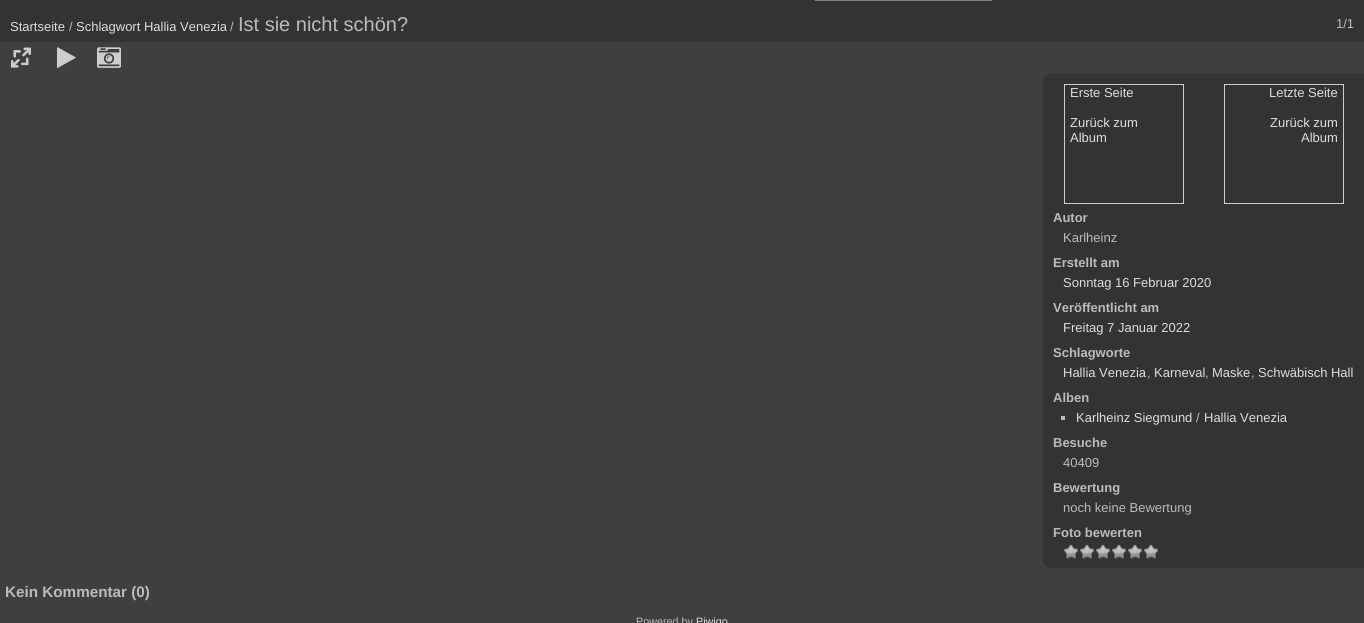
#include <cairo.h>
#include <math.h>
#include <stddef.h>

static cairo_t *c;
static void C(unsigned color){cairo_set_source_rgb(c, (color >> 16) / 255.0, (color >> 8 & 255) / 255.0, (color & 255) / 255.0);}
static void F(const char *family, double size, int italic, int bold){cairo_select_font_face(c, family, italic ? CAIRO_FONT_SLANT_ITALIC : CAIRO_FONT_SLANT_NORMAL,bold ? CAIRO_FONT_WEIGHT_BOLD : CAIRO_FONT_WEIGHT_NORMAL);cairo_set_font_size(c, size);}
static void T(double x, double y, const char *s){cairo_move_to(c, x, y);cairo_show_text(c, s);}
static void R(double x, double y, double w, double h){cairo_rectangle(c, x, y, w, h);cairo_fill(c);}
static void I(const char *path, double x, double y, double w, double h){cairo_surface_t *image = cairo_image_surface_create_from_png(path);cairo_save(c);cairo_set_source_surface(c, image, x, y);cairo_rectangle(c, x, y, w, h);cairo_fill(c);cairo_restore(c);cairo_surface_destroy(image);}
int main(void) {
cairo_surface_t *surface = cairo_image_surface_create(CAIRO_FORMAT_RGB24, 1364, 623);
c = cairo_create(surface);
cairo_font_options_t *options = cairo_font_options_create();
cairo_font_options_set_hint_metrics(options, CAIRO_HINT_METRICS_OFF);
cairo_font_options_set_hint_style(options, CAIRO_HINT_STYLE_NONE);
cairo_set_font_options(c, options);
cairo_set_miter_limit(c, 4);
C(0x3f3f3f);
cairo_paint(c);
C(0x333333);
R(0,0,1364,42);
cairo_rectangle(c,815.5,-.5,176,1);
C(0x808080);
cairo_set_line_width(c,1);
cairo_stroke(c);
F("Liberation Sans",13,0,0);
C(0xdddddd);
T(10,31,"Startseite");
C(0xbbbbbb);
T(69,31,"/");
C(0xdddddd);
T(76,31,"Schlagwort Hallia Venezia");
C(0xbbbbbb);
T(230,31,"/");
F("Liberation Sans",20,0,0);
T(238,31,"Ist sie nicht schön?");
F("Liberation Sans",13,0,0);
T(1336,28,"1/1");
I("1.png",11,47,20,21);
F("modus",24,0,0);
C(0xcdcdcd);
T(57,66,"▶");
I("2.png",97,47,24,21);
C(0x333333);
cairo_new_path(c);
cairo_move_to(c,1051,74);
cairo_line_to(c,1364,74);
cairo_line_to(c,1364,568);
cairo_line_to(c,1051,568);
cairo_curve_to(c,1046.5,568,1043,564.5,1043,560);
cairo_line_to(c,1043,82);
cairo_curve_to(c,1043,77.5,1046.5,74,1051,74);
cairo_close_path(c);
cairo_fill(c);
cairo_rectangle(c,1064.5,84.5,119,119);
C(0xcccccc);
cairo_stroke(c);
F("Liberation Sans",13,0,0);
C(0xdddddd);
T(1070,97,"Erste Seite");
T(1070,127,"Zurück zum");
T(1070,142,"Album");
cairo_rectangle(c,1224.5,84.5,119,119);
C(0xcccccc);
cairo_stroke(c);
C(0xdddddd);
T(1269,97,"Letzte Seite");
T(1270,127,"Zurück zum");
T(1301,142,"Album");
F("Liberation Sans",13,0,1);
C(0xbbbbbb);
T(1053,222,"Autor");
F("Liberation Sans",13,0,0);
T(1063,242,"Karlheinz");
F("Liberation Sans",13,0,1);
T(1053,267,"Erstellt am");
F("Liberation Sans",13,0,0);
C(0xdddddd);
T(1063,287,"Sonntag 16 Februar 2020");
F("Liberation Sans",13,0,1);
C(0xbbbbbb);
T(1053,312,"Veröffentlicht am");
F("Liberation Sans",13,0,0);
C(0xdddddd);
T(1063,332,"Freitag 7 Januar 2022");
F("Liberation Sans",13,0,1);
C(0xbbbbbb);
T(1053,357,"Schlagworte");
F("Liberation Sans",13,0,0);
C(0xdddddd);
T(1063,377,"Hallia Venezia");
C(0xbbbbbb);
T(1147,377,",");
C(0xdddddd);
T(1154,377,"Karneval");
C(0xbbbbbb);
T(1205,377,",");
C(0xdddddd);
T(1212,377,"Maske");
C(0xbbbbbb);
T(1251,377,",");
C(0xdddddd);
T(1258,377,"Schwäbisch Hall");
F("Liberation Sans",13,0,1);
C(0xbbbbbb);
T(1053,402,"Alben");
R(1061,416,4,4);
F("Liberation Sans",13,0,0);
C(0xdddddd);
T(1076,422,"Karlheinz Siegmund");
C(0xbbbbbb);
T(1196,422,"/");
C(0xdddddd);
T(1204,422,"Hallia Venezia");
F("Liberation Sans",13,0,1);
C(0xbbbbbb);
T(1053,447,"Besuche");
F("Liberation Sans",13,0,0);
T(1063,467,"40409");
F("Liberation Sans",13,0,1);
T(1053,492,"Bewertung");
F("Liberation Sans",13,0,0);
T(1063,512,"noch keine Bewertung");
F("Liberation Sans",13,0,1);
T(1053,537,"Foto bewerten");
I("3.png",1063,545,16,14);
I("3.png",1079,545,16,14);
I("3.png",1095,545,16,14);
I("3.png",1111,545,16,14);
I("3.png",1127,545,16,14);
I("3.png",1143,545,16,14);
F("Liberation Sans",15.25,0,1);
T(5,597,"Kein Kommentar (0)");
F("Liberation Sans",10.75,0,0);
T(636,625,"Powered by");
C(0xdddddd);
T(696,625,"Piwigo");
cairo_surface_write_to_png(surface, "o.png");
cairo_font_options_destroy(options);
cairo_destroy(c);
cairo_surface_destroy(surface);
return 0;
}
